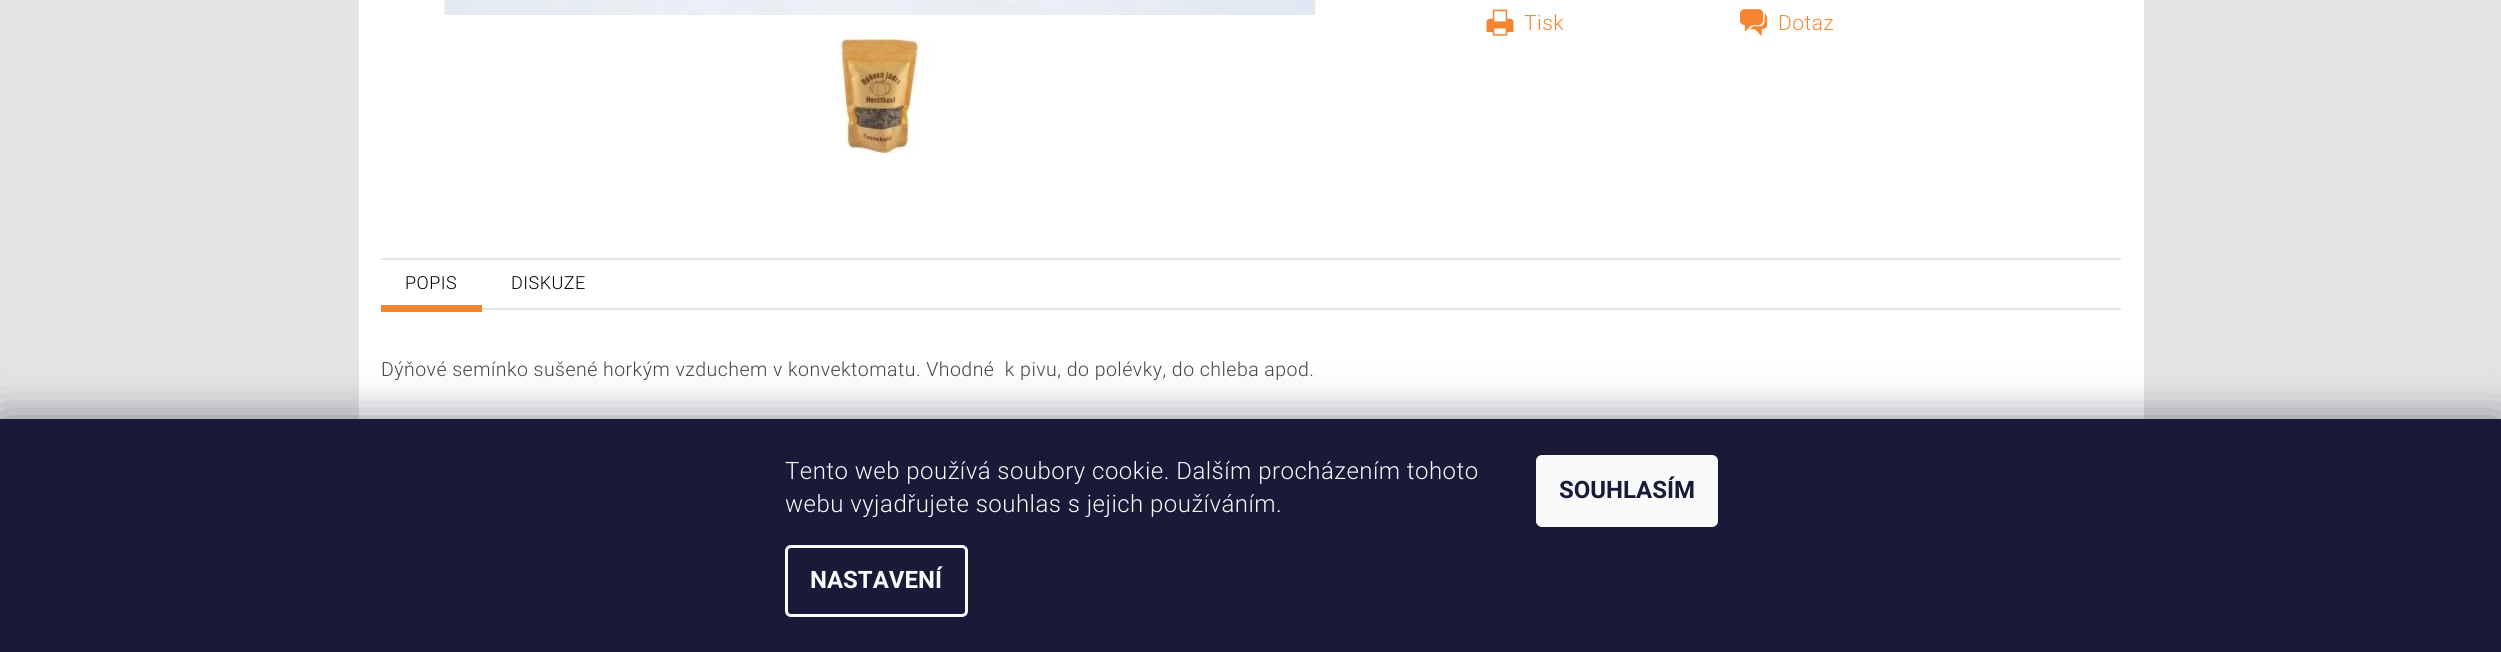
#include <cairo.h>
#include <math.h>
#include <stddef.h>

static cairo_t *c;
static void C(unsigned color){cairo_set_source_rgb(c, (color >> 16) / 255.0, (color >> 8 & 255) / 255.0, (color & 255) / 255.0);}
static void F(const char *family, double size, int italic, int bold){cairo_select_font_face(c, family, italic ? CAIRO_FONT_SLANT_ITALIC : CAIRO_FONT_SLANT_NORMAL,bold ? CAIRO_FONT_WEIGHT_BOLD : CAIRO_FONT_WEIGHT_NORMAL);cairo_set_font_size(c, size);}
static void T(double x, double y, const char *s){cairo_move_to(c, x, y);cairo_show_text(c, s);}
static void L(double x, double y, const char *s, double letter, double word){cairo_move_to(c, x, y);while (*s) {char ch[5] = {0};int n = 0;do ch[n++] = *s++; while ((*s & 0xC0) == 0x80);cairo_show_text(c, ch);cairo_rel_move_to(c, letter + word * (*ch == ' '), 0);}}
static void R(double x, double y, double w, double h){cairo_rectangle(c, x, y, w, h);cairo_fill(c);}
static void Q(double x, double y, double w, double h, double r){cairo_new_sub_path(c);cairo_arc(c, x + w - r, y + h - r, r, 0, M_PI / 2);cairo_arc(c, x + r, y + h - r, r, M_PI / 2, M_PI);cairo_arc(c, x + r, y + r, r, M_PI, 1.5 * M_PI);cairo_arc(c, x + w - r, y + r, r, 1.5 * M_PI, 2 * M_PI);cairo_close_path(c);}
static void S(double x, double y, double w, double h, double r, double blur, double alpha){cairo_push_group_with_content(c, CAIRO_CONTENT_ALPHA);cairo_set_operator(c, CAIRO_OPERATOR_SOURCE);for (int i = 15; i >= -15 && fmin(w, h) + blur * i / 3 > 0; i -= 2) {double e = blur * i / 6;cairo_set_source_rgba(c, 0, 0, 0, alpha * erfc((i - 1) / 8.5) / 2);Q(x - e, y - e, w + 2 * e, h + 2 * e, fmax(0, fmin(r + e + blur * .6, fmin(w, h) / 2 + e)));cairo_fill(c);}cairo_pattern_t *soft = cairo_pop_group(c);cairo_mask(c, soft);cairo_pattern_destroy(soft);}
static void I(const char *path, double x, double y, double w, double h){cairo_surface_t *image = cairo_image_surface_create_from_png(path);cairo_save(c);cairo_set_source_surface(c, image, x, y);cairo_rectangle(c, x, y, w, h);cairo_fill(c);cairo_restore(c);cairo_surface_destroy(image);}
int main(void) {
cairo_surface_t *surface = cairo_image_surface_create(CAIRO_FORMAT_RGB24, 2501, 652);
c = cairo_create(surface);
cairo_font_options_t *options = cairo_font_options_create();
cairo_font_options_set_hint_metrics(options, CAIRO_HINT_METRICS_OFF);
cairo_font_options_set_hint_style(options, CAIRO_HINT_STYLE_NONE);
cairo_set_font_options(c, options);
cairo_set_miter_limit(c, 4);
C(0xe4e4e4);
cairo_paint(c);
C(0xffffff);
R(359,0,1785,419);
I("1.png",444,0,872,15);
I("2.png",839,39,91,114);
I("3.png",1486,9,28,27);
F("Roboto Light",21,0,0);
C(0xf7842f);
L(1524,30,"Tisk",.48,0);
I("4.png",1740,9,28,27);
L(1778,30,"Dotaz",.48,0);
C(0xe4e4e4);
R(381,258,1740,2);
R(482,308,1639,2);
C(0xf7842f);
R(381,305,101,7);
F("Roboto Light",18,0,0);
C(0x000000);
L(405,289,"POPIS",.48,0);
L(511,289,"DISKUZE",.48,0);
F("Roboto Light",19.5,0,0);
C(0x444444);
L(381,376,"Dýňové semínko sušené horkým vzduchem v konvektomatu. Vhodné  k pivu, do polévky, do chleba apod.",.48,0);
C(0x1b1939);
S(0,419,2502,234,0,22.5,.5);
C(0x1a1937);
R(0,419,2501,233);
F("Roboto Light",24,0,0);
C(0xf8fafb);
L(785,479,"Tento web používá soubory cookie. Dalším procházením tohoto",.48,0);
L(785,512,"webu vyjadřujete souhlas s jejich používáním.",.48,0);
Q(786.5,546.5,180,69,4.5);
cairo_set_line_width(c,3);
cairo_stroke(c);
F("Roboto",24,0,1);
T(810,588,"NASTAVENÍ");
Q(1536,455,182,72,6);
cairo_fill(c);
C(0x1a1937);
T(1559,498,"SOUHLASÍM");
cairo_surface_write_to_png(surface, "o.png");
cairo_font_options_destroy(options);
cairo_destroy(c);
cairo_surface_destroy(surface);
return 0;
}
